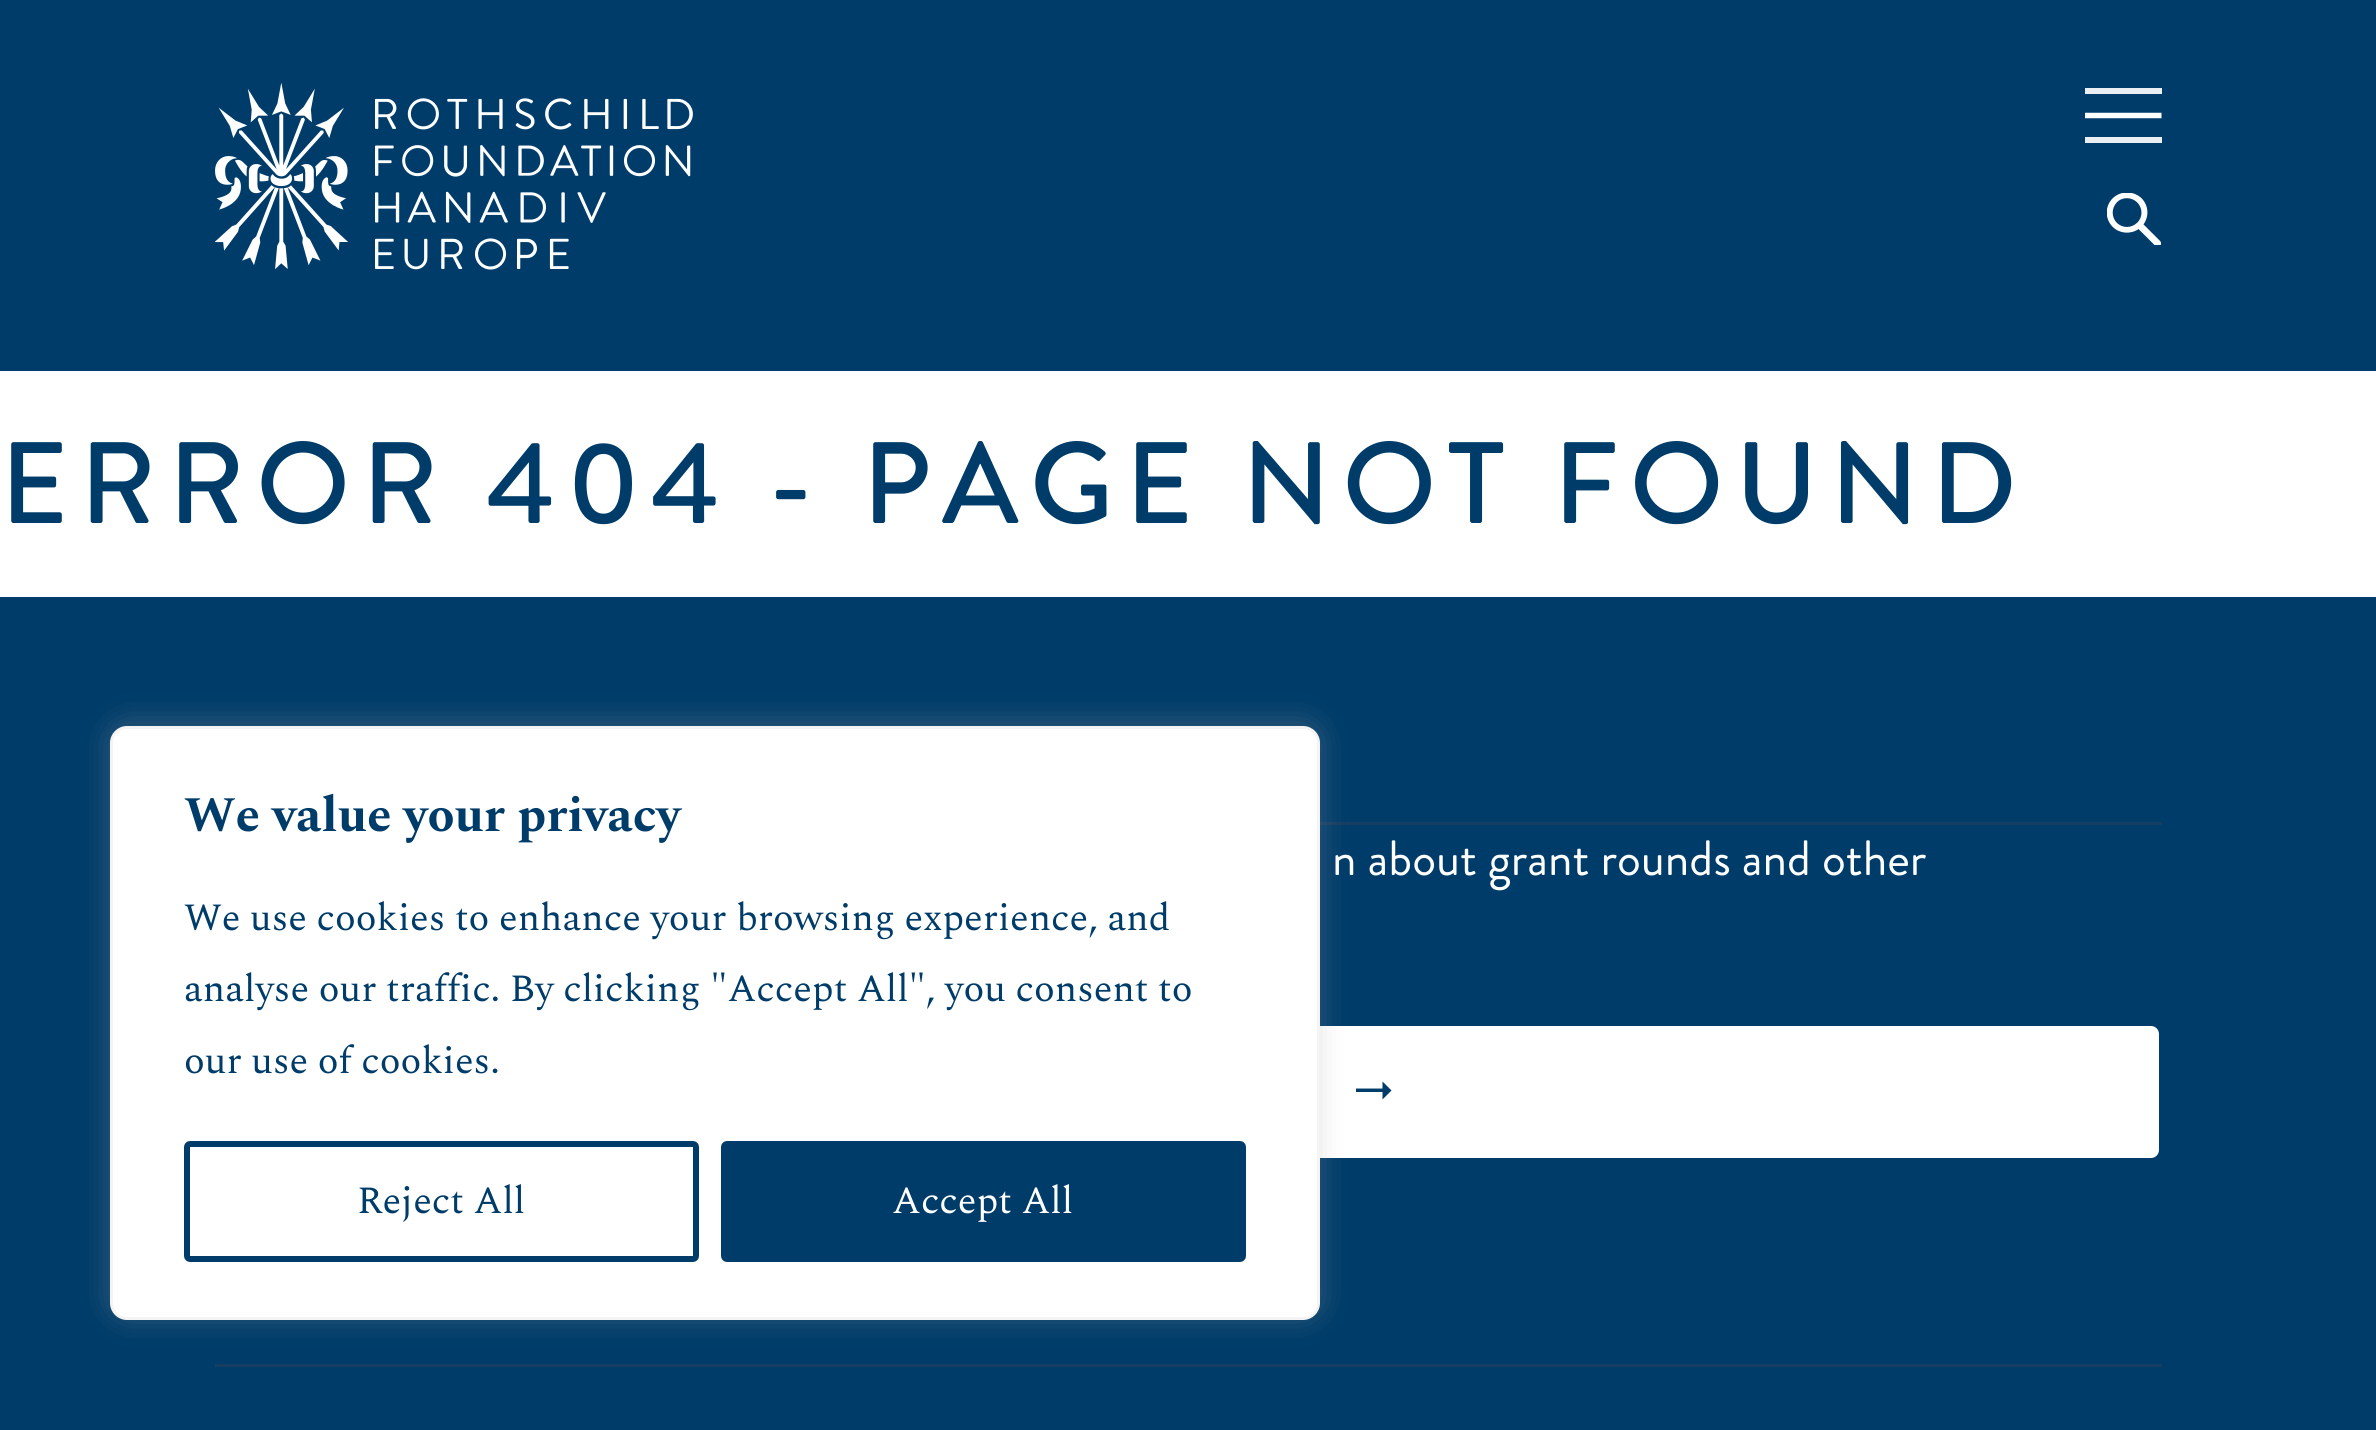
#include <cairo.h>
#include <math.h>
#include <stddef.h>

static cairo_t *c;
static void C(unsigned color){cairo_set_source_rgb(c, (color >> 16) / 255.0, (color >> 8 & 255) / 255.0, (color & 255) / 255.0);}
static void F(const char *family, double size, int italic, int bold){cairo_select_font_face(c, family, italic ? CAIRO_FONT_SLANT_ITALIC : CAIRO_FONT_SLANT_NORMAL,bold ? CAIRO_FONT_WEIGHT_BOLD : CAIRO_FONT_WEIGHT_NORMAL);cairo_set_font_size(c, size);}
static void T(double x, double y, const char *s){cairo_move_to(c, x, y);cairo_show_text(c, s);}
static void L(double x, double y, const char *s, double letter, double word){cairo_move_to(c, x, y);while (*s) {char ch[5] = {0};int n = 0;do ch[n++] = *s++; while ((*s & 0xC0) == 0x80);cairo_show_text(c, ch);cairo_rel_move_to(c, letter + word * (*ch == ' '), 0);}}
static void R(double x, double y, double w, double h){cairo_rectangle(c, x, y, w, h);cairo_fill(c);}
static void Q(double x, double y, double w, double h, double r){cairo_new_sub_path(c);cairo_arc(c, x + w - r, y + h - r, r, 0, M_PI / 2);cairo_arc(c, x + r, y + h - r, r, M_PI / 2, M_PI);cairo_arc(c, x + r, y + r, r, M_PI, 1.5 * M_PI);cairo_arc(c, x + w - r, y + r, r, 1.5 * M_PI, 2 * M_PI);cairo_close_path(c);}
static void S(double x, double y, double w, double h, double r, double blur, double alpha){cairo_push_group_with_content(c, CAIRO_CONTENT_ALPHA);cairo_set_operator(c, CAIRO_OPERATOR_SOURCE);for (int i = 15; i >= -15 && fmin(w, h) + blur * i / 3 > 0; i -= 2) {double e = blur * i / 6;cairo_set_source_rgba(c, 0, 0, 0, alpha * erfc((i - 1) / 8.5) / 2);Q(x - e, y - e, w + 2 * e, h + 2 * e, fmax(0, fmin(r + e + blur * .6, fmin(w, h) / 2 + e)));cairo_fill(c);}cairo_pattern_t *soft = cairo_pop_group(c);cairo_mask(c, soft);cairo_pattern_destroy(soft);}
static void I(const char *path, double x, double y, double w, double h){cairo_surface_t *image = cairo_image_surface_create_from_png(path);cairo_save(c);cairo_set_source_surface(c, image, x, y);cairo_rectangle(c, x, y, w, h);cairo_fill(c);cairo_restore(c);cairo_surface_destroy(image);}
int main(void) {
cairo_surface_t *surface = cairo_image_surface_create(CAIRO_FORMAT_RGB24, 2376, 1430);
c = cairo_create(surface);
cairo_font_options_t *options = cairo_font_options_create();
cairo_font_options_set_hint_metrics(options, CAIRO_HINT_METRICS_OFF);
cairo_font_options_set_hint_style(options, CAIRO_HINT_STYLE_NONE);
cairo_set_font_options(c, options);
cairo_set_miter_limit(c, 4);
C(0xffffff);
cairo_paint(c);
C(0x003c69);
R(0,0,2376,371);
I("1.png",215,83,478,187);
C(0xeaeff3);
R(2085,88,77,6);
cairo_save(c);
cairo_rectangle(c,2085,88,77,55);
cairo_clip(c);
cairo_new_path(c);
cairo_move_to(c,2084.5,115.5);
cairo_line_to(c,2161.5,115.5);
C(0xffffff);
cairo_set_line_width(c,5.5);
cairo_stroke(c);
cairo_restore(c);
R(2085,137,77,6);
I("2.png",2107,193,54,52);
F("Brandon Grotesque Medium",115.5,0,0);
C(0x003c69);
L(0,523,"ERROR 404 - PAGE NOT FOUND",11.55,0);
R(0,597,2376,833);
C(0x163e62);
R(1320,822,842,3);
C(0xffffff);
Q(216.5,1024.5,1944,135,9.5);
cairo_fill_preserve(c);
C(0x003c69);
cairo_set_line_width(c,3);
cairo_stroke(c);
cairo_new_path(c);
cairo_move_to(c,1382.5,1099.5);
cairo_line_to(c,1382.5,1092);
cairo_line_to(c,1356,1092);
cairo_line_to(c,1356,1088.5);
cairo_line_to(c,1382.5,1088.5);
cairo_line_to(c,1382.5,1081.5);
cairo_line_to(c,1391.5,1090.5);
cairo_close_path(c);
cairo_fill(c);
C(0xacabab);
S(110,723,1210,594,17,14,.3);
C(0xffffff);
Q(111.5,727.5,1207,591,15.5);
cairo_fill_preserve(c);
C(0xf4f4f4);
cairo_stroke(c);
F("Spectral",49.5,0,1);
C(0x003c69);
T(184,831,"We value your privacy");
F("Spectral",38.5,0,0);
T(184,930,"We use cookies to enhance your browsing experience, and");
T(184,1001,"analyse our traffic. By clicking \"Accept All\", you consent to");
T(184,1073,"our use of cookies.");
Q(187,1144,509,115,3);
cairo_set_line_width(c,6);
cairo_stroke(c);
T(357,1213,"Reject All");
Q(724,1144,519,115,3);
cairo_fill_preserve(c);
cairo_stroke(c);
C(0xffffff);
T(892,1213,"Accept All");
F("Brandon Grotesque",49.5,0,0);
T(1332,875,"n about grant rounds and other");
C(0x163e62);
R(215,1364,1947,3);
cairo_surface_write_to_png(surface, "o.png");
cairo_font_options_destroy(options);
cairo_destroy(c);
cairo_surface_destroy(surface);
return 0;
}
